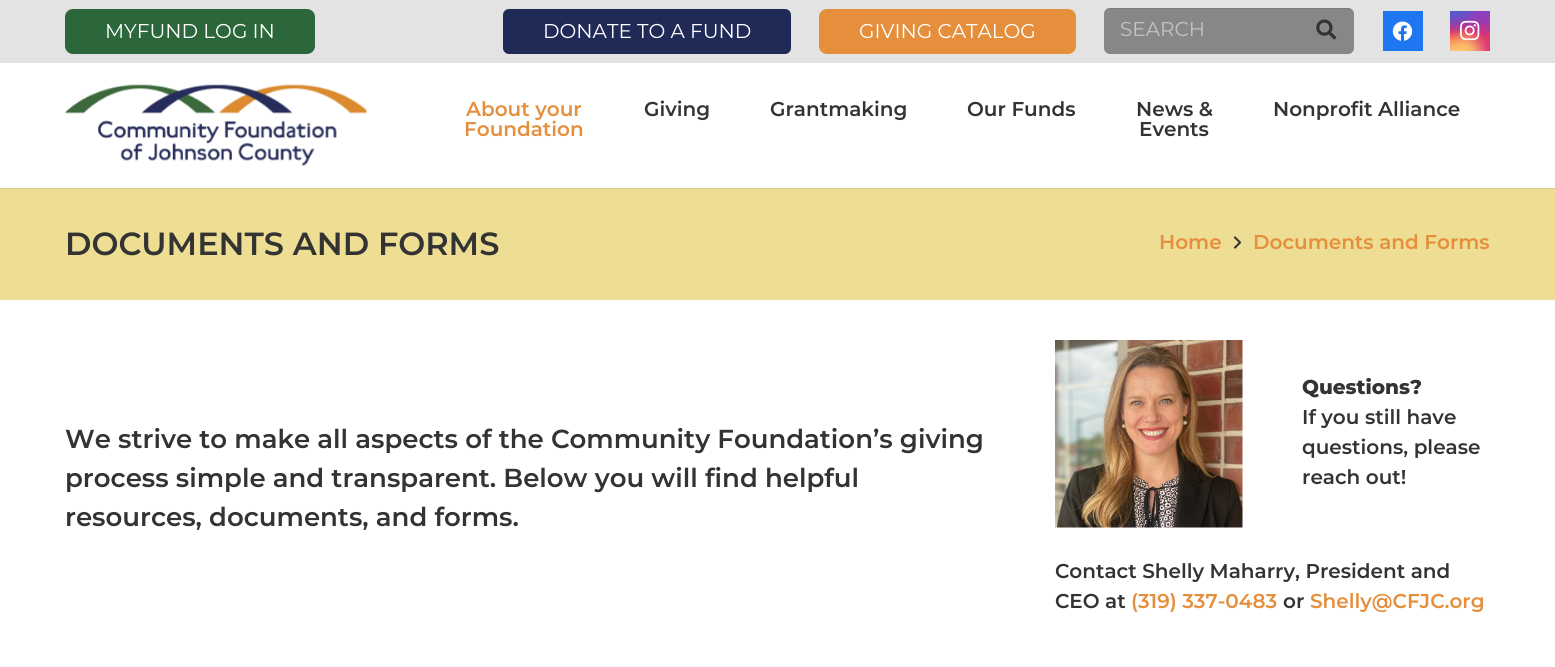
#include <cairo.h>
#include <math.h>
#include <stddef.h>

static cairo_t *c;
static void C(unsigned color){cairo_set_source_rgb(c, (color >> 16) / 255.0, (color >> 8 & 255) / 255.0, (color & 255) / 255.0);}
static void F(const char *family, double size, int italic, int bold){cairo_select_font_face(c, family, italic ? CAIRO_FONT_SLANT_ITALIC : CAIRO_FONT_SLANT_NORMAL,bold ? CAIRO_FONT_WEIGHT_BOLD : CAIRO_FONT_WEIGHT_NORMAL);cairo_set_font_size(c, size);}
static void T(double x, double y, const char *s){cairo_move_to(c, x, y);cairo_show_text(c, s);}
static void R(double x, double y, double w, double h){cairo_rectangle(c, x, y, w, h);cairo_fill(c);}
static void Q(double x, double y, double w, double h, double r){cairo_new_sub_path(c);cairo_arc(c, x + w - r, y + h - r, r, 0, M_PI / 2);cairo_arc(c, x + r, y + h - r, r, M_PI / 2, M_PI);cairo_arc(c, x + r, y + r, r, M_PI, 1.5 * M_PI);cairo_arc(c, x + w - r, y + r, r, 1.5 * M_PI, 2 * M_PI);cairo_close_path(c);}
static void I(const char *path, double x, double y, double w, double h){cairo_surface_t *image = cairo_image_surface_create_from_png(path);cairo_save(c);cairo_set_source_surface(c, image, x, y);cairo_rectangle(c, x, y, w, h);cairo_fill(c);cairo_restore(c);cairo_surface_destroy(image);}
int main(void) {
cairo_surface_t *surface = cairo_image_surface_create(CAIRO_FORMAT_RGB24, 1555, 667);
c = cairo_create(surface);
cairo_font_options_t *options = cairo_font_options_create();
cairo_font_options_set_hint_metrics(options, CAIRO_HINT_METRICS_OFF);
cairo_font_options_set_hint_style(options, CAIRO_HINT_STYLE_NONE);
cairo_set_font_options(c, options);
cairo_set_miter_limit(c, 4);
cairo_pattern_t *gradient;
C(0xffffff);
cairo_paint(c);
C(0xe3e3e3);
R(0,0,1555,63);
C(0x2c673c);
Q(65,9,250,45,8);
cairo_fill(c);
F("Montserrat",20,0,0);
C(0xffffff);
T(105,38,"MYFUND LOG IN");
C(0x1f2a57);
Q(503,9,288,45,6);
cairo_fill(c);
C(0xffffff);
T(543,38,"DONATE TO A FUND");
C(0xe58f3d);
Q(819,9,257,45,8);
cairo_fill(c);
C(0xffffff);
T(859,38,"GIVING CATALOG");
C(0x878787);
Q(1104,8,250,46,6);
cairo_fill(c);
cairo_set_source_rgba(c,0,0,0,0.08);
cairo_new_path(c);
cairo_move_to(c,1110,9);
cairo_line_to(c,1348,9);
cairo_curve_to(c,1351,9,1354,11,1354,15);
cairo_curve_to(c,1354,11,1352,8,1348,8);
cairo_line_to(c,1109,8);
cairo_curve_to(c,1105,9,1104,12,1104,15);
cairo_curve_to(c,1104,11,1106,9,1110,9);
cairo_close_path(c);
cairo_fill(c);
C(0xc3c3c3);
T(1120,36,"SEARCH");
I("1.png",1316,19,21,21);
C(0x1e77f0);
R(1383,11,40,40);
I("2.png",1392,21,21,20);
gradient = cairo_pattern_create_linear(1470,11,1470,51);
cairo_pattern_add_color_stop_rgba(gradient,0,0.396,0.349,0.792,1);
cairo_pattern_add_color_stop_rgba(gradient,.3,0.737,0.192,0.561,1);
cairo_pattern_add_color_stop_rgba(gradient,.5,0.894,0.18,0.4,1);
cairo_pattern_add_color_stop_rgba(gradient,.7,0.98,0.325,0.196,1);
cairo_pattern_add_color_stop_rgba(gradient,1,1,0.863,0.502,1);
cairo_set_source(c,gradient);
cairo_pattern_destroy(gradient);
R(1450,11,40,40);
gradient = cairo_pattern_create_radial(1490,51,0,1490,51,57);
cairo_pattern_add_color_stop_rgba(gradient,0,0.851,0.192,0.478,1);
cairo_pattern_add_color_stop_rgba(gradient,1,0.851,0.192,0.478,0);
cairo_set_source(c,gradient);
cairo_pattern_destroy(gradient);
R(1450,11,40,40);
gradient = cairo_pattern_create_radial(0,0,0,0,0,1);
cairo_pattern_set_matrix(gradient, &(cairo_matrix_t){1.0 / 34, 0, 0, 1.0 / 68, -1.0 * 1474 / 34, -1.0 * 3.2 / 68});
cairo_pattern_add_color_stop_rgba(gradient,0,0.537,0.239,0.761,1);
cairo_pattern_add_color_stop_rgba(gradient,.5,0.537,0.239,0.761,0);
cairo_set_source(c,gradient);
cairo_pattern_destroy(gradient);
R(1460,11,29,25);
gradient = cairo_pattern_create_radial(1490,11,0,1490,11,57);
cairo_pattern_add_color_stop_rgba(gradient,0,0.537,0.239,0.761,1);
cairo_pattern_add_color_stop_rgba(gradient,.5,0.537,0.239,0.761,0);
cairo_set_source(c,gradient);
cairo_pattern_destroy(gradient);
R(1465,11,25,28);
gradient = cairo_pattern_create_radial(0,0,0,0,0,1);
cairo_pattern_set_matrix(gradient, &(cairo_matrix_t){1.0 / 45, 0, 0, 1.0 / 85, -1.0 * 1458 / 45, -1.0 * -9 / 85});
cairo_pattern_add_color_stop_rgba(gradient,0,0.322,0.345,0.812,1);
cairo_pattern_add_color_stop_rgba(gradient,.5,0.322,0.345,0.812,0);
cairo_set_source(c,gradient);
cairo_pattern_destroy(gradient);
R(1450,11,26,22);
gradient = cairo_pattern_create_radial(0,0,0,0,0,1);
cairo_pattern_set_matrix(gradient, &(cairo_matrix_t){1.0 / 57, 0, 0, 1.0 / 71, -1.0 * 1450 / 57, -1.0 * 1.2 / 71});
cairo_pattern_add_color_stop_rgba(gradient,0,0.322,0.345,0.812,1);
cairo_pattern_add_color_stop_rgba(gradient,.5,0.322,0.345,0.812,0);
cairo_set_source(c,gradient);
cairo_pattern_destroy(gradient);
R(1450,11,26,25);
gradient = cairo_pattern_create_radial(1454,67,0,1454,67,67);
cairo_pattern_add_color_stop_rgba(gradient,0,0.996,0.855,0.494,1);
cairo_pattern_add_color_stop_rgba(gradient,.5,0.996,0.855,0.494,0);
cairo_set_source(c,gradient);
cairo_pattern_destroy(gradient);
R(1450,34,32,17);
gradient = cairo_pattern_create_radial(1464,51,0,1464,51,48);
cairo_pattern_add_color_stop_rgba(gradient,0,0.996,0.773,0.392,1);
cairo_pattern_add_color_stop_rgba(gradient,.5,0.996,0.773,0.392,0);
cairo_set_source(c,gradient);
cairo_pattern_destroy(gradient);
R(1450,28,37,23);
I("3.png",1460,20,20,21);
C(0xdbcc87);
R(0,188,1555,1);
I("4.png",65,84,302,82);
F("Montserrat SemiBold",20,0,0);
C(0xe58f3d);
T(466,116,"About your");
T(464,136,"Foundation");
C(0x333333);
T(644,116,"Giving");
T(770,116,"Grantmaking");
T(967,116,"Our Funds");
T(1136,116,"News &");
T(1139,136,"Events");
T(1273,116,"Nonprofit Alliance");
C(0xeede93);
R(0,189,1555,111);
F("Montserrat SemiBold",32,0,0);
C(0x333333);
T(65,255,"DOCUMENTS AND FORMS");
F("Montserrat SemiBold",20,0,0);
C(0xe58f3d);
T(1159,249,"Home");
I("5.png",1233,236,9,13);
T(1253,249,"Documents and Forms");
F("Montserrat SemiBold",26,0,0);
C(0x333333);
T(65,448,"We strive to make all aspects of the Community Foundation’s giving");
T(65,487,"process simple and transparent. Below you will find helpful");
T(65,526,"resources, documents, and forms.");
I("6.png",1055,340,188,188);
F("Montserrat ExtraBold",20,0,0);
T(1302,394,"Questions?");
F("Montserrat SemiBold",20,0,0);
T(1302,424,"If you still have");
T(1302,454,"questions, please");
T(1302,484,"reach out!");
T(1055,578,"Contact Shelly Maharry, President and");
T(1055,608,"CEO at");
C(0xe58f3d);
T(1131,608,"(319) 337-0483");
C(0x333333);
T(1283,608,"or");
C(0xe58f3d);
T(1310,608,"Shelly@CFJC.org");
cairo_surface_write_to_png(surface, "o.png");
cairo_font_options_destroy(options);
cairo_destroy(c);
cairo_surface_destroy(surface);
return 0;
}
